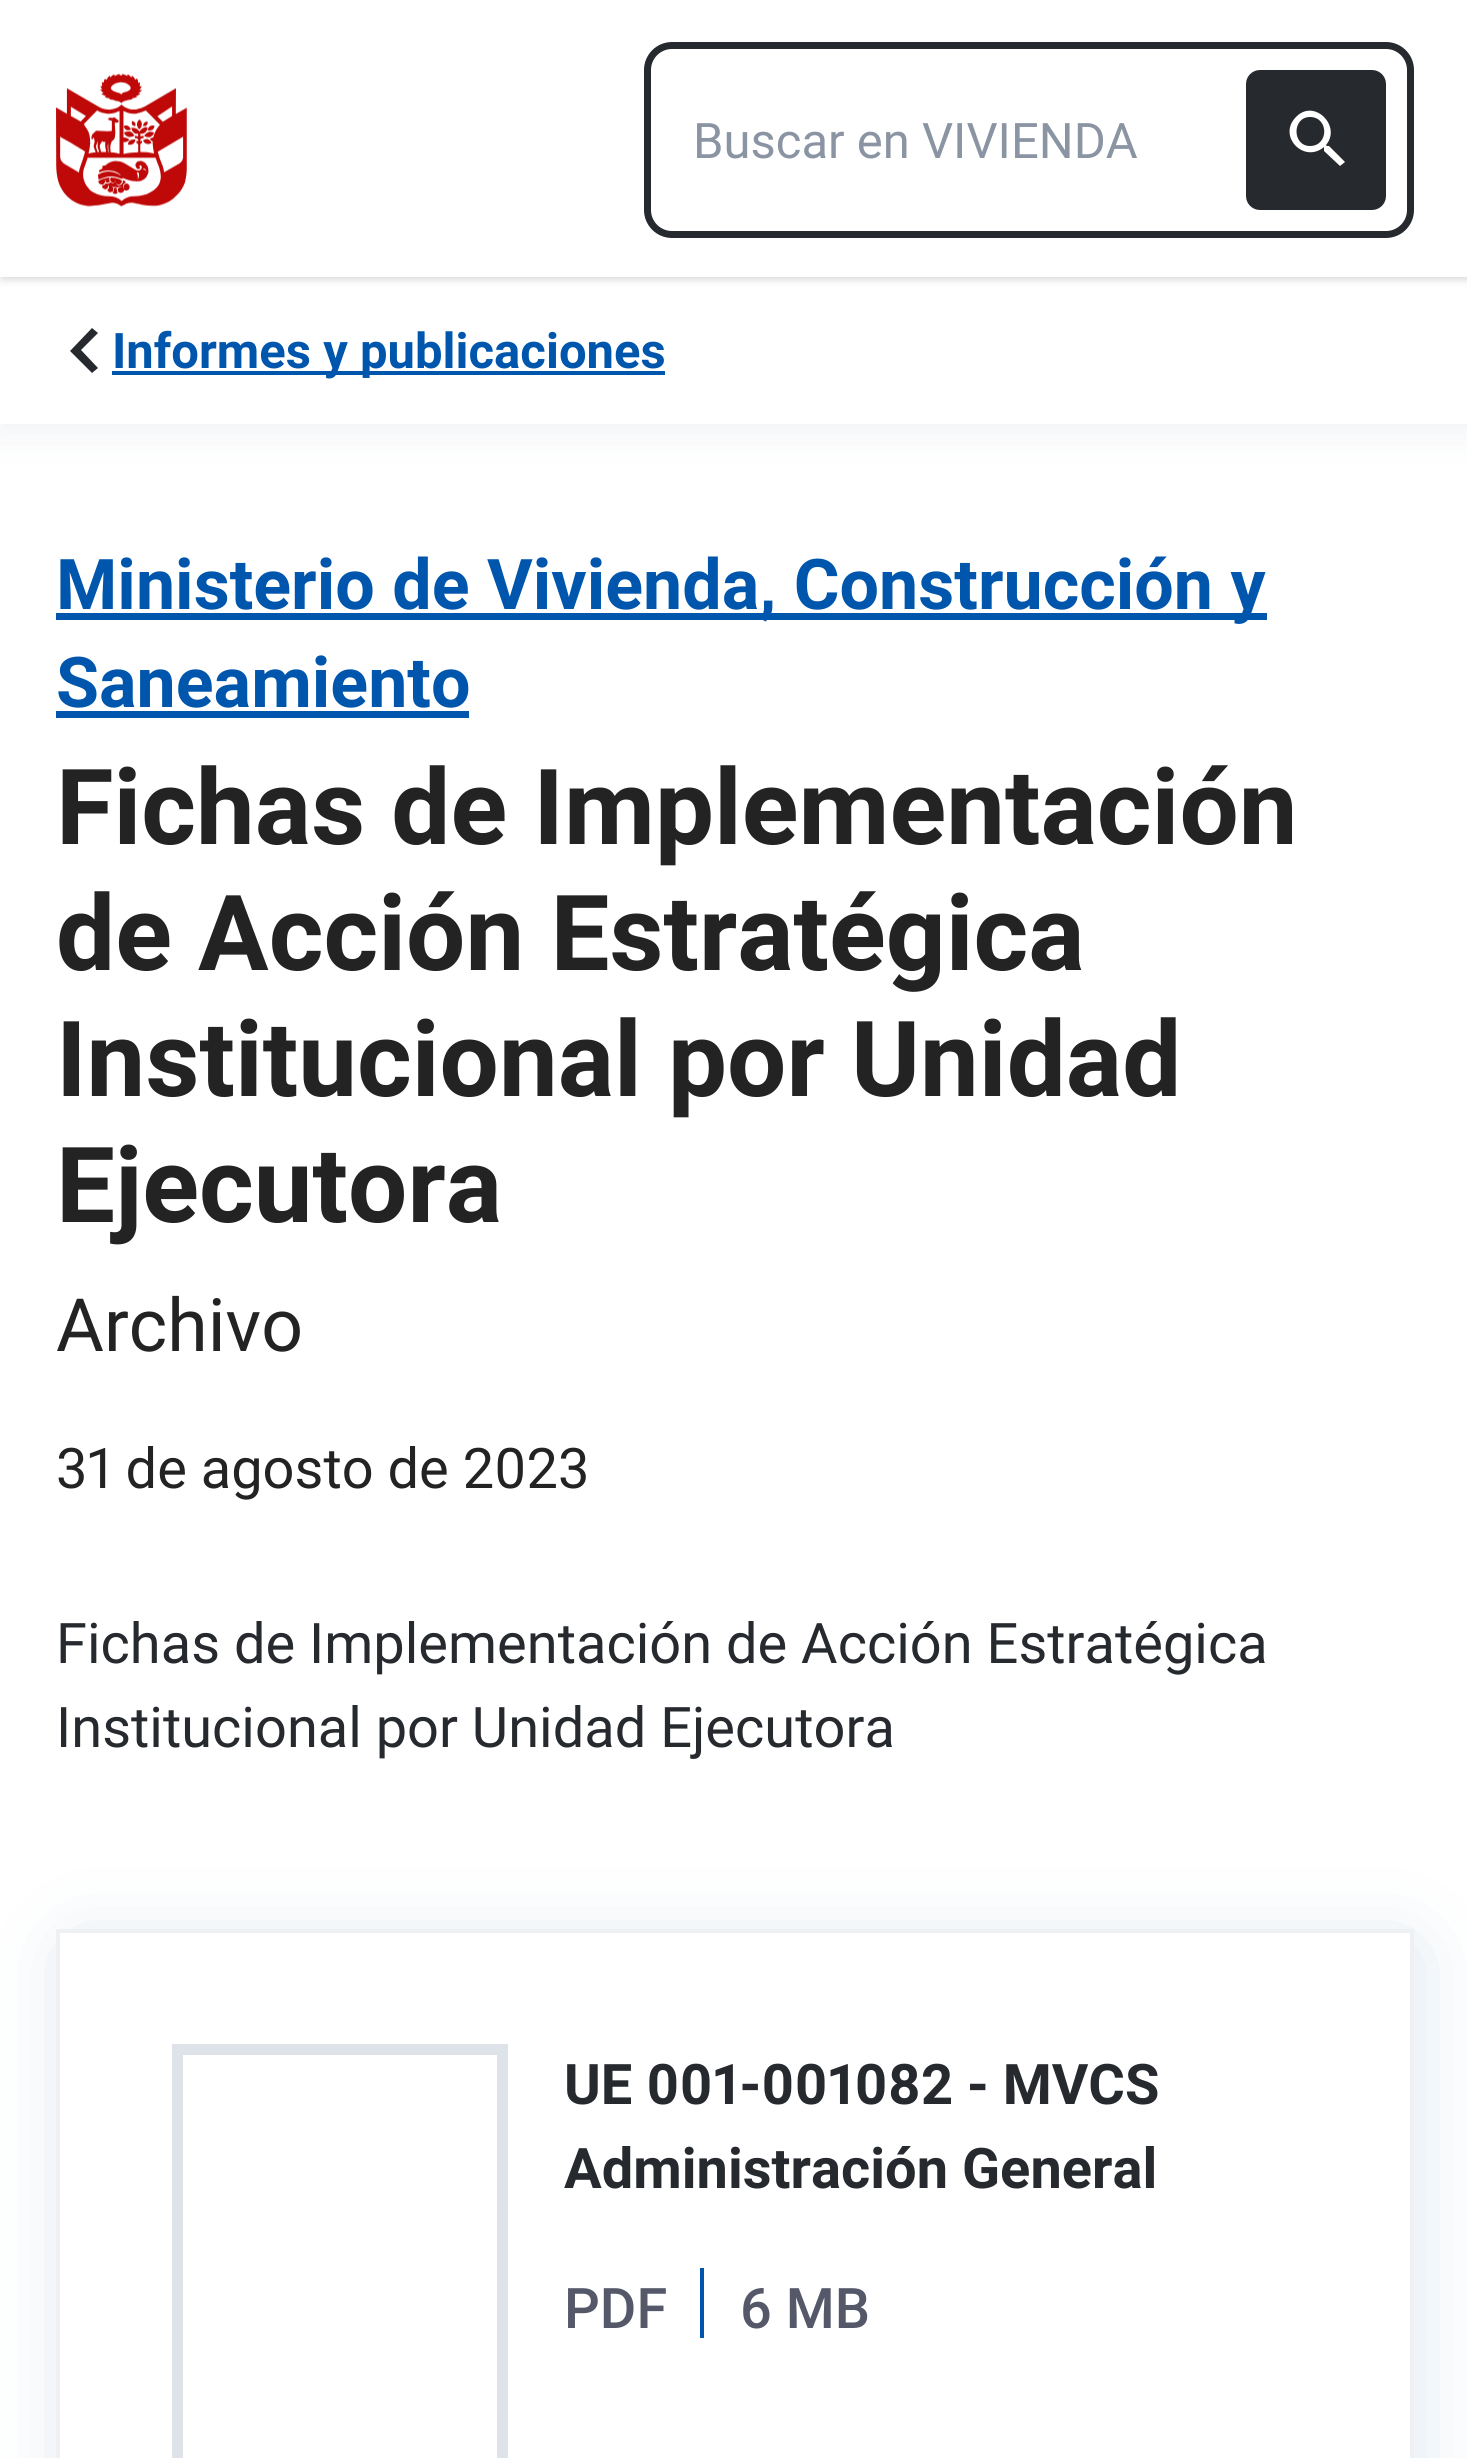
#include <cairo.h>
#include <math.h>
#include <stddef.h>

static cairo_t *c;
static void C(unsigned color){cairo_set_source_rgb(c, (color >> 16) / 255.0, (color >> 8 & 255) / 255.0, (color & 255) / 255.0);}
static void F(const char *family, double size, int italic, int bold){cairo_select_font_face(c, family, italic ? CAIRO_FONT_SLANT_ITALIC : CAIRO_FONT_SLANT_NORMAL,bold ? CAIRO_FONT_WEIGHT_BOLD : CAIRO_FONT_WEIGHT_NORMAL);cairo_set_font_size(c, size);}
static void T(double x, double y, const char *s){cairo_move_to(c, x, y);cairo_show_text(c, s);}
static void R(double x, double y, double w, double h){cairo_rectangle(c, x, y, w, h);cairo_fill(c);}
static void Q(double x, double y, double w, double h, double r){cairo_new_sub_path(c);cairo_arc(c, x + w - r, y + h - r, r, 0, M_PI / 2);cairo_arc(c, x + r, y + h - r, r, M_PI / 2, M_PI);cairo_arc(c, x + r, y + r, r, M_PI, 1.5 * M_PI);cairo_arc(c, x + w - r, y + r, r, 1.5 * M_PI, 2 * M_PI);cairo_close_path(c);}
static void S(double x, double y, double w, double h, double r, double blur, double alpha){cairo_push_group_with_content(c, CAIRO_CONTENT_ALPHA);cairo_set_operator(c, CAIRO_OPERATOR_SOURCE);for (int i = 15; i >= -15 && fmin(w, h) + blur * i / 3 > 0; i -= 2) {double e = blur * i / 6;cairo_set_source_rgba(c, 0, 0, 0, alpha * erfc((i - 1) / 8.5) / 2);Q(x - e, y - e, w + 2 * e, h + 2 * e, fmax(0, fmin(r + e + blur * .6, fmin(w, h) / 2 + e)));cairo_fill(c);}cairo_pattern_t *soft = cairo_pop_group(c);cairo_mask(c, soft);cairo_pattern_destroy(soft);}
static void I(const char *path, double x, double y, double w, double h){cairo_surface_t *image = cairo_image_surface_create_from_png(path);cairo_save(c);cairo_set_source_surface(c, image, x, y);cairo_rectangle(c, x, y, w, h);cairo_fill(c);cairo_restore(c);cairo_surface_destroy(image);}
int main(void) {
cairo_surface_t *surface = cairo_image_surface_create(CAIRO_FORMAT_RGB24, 1467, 2458);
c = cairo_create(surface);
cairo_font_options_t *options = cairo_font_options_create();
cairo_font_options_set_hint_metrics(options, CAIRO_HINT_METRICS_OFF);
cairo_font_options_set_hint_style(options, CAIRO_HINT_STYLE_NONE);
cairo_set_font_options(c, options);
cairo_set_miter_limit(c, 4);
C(0xffffff);
cairo_paint(c);
C(0xbec7d3);
S(-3,277,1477,154,0,19,.25);
C(0xffffff);
R(0,277,1467,147);
C(0x000000);
S(4,7,1463,270,0,3.5,.1);
S(0,4,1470,276,0,5,.1);
C(0xffffff);
R(0,0,1467,277);
I("1.png",56,73,131,134);
Q(647.5,45.5,763,189,24.5);
C(0x26292e);
cairo_set_line_width(c,7);
cairo_stroke(c);
F("Roboto",49,0,0);
C(0x8a94a2);
T(693,158,"Buscar en VIVIENDA");
C(0x26292e);
Q(1246,70,140,140,14);
cairo_fill(c);
C(0xffffff);
cairo_new_path(c);
cairo_move_to(c,1329,146);
cairo_line_to(c,1327,146);
cairo_line_to(c,1326,145);
cairo_curve_to(c,1342,126,1314,98,1296,117);
cairo_curve_to(c,1277,136,1304,164,1324,147);
cairo_line_to(c,1324,148);
cairo_line_to(c,1324,151);
cairo_line_to(c,1340,166);
cairo_line_to(c,1345,162);
cairo_close_path(c);
cairo_move_to(c,1310,146);
cairo_curve_to(c,1292,146,1292,117,1310,117);
cairo_curve_to(c,1329,117,1329,146,1310,146);
cairo_close_path(c);
cairo_fill(c);
C(0x26292e);
cairo_new_path(c);
cairo_move_to(c,98,333);
cairo_line_to(c,81,350);
cairo_line_to(c,98,368);
cairo_line_to(c,92,373);
cairo_line_to(c,70,351);
cairo_line_to(c,92,328);
cairo_close_path(c);
cairo_fill(c);
C(0x0056ac);
R(112,371,553,4);
F("Roboto",49,0,1);
T(112,368,"Informes y publicaciones");
R(56,613,1211,7);
F("Roboto",70,0,1);
T(56,609,"Ministerio de Vivienda, Construcción y");
T(56,707,"Saneamiento");
R(56,711,413,7);
F("Roboto",105,0,1);
C(0x232323);
T(56,844,"Fichas de Implementación");
T(56,970,"de Acción Estratégica");
T(56,1096,"Institucional por Unidad");
T(56,1222,"Ejecutora");
F("Roboto",73.5,0,0);
T(56,1351,"Archivo");
F("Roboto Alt",56,0,0);
T(56,1488,"31 de agosto de 2023");
F("Roboto",56,0,0);
C(0x26292e);
T(56,1663,"Fichas de Implementación de Acción Estratégica");
T(56,1747,"Institucional por Unidad Ejecutora");
cairo_save(c);
cairo_set_fill_rule(c,CAIRO_FILL_RULE_EVEN_ODD);
cairo_new_path(c);
cairo_move_to(c,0,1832);
cairo_line_to(c,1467,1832);
cairo_line_to(c,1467,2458);
cairo_line_to(c,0,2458);
cairo_close_path(c);
cairo_move_to(c,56,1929);
cairo_line_to(c,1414,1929);
cairo_line_to(c,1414,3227);
cairo_line_to(c,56,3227);
cairo_close_path(c);
cairo_clip(c);
C(0xd3e0ec);
S(77,1953,1330,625,0,40,1);
cairo_restore(c);
cairo_rectangle(c,58,1931,1354,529);
C(0xeef0f4);
cairo_set_line_width(c,4);
cairo_stroke(c);
cairo_rectangle(c,177.5,2049.5,325,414);
C(0xdee3ea);
cairo_set_line_width(c,11);
cairo_stroke(c);
F("Roboto Alt",56,0,1);
C(0x26292e);
T(564,2104,"UE 001-001082 - MVCS");
F("Roboto",56,0,1);
T(564,2188,"Administración General");
F("Roboto Medium",56,0,0);
C(0x555869);
T(564,2328,"PDF");
C(0x0056ac);
R(700,2268,4,70);
C(0x555869);
T(740,2328,"6 MB");
cairo_surface_write_to_png(surface, "o.png");
cairo_font_options_destroy(options);
cairo_destroy(c);
cairo_surface_destroy(surface);
return 0;
}
